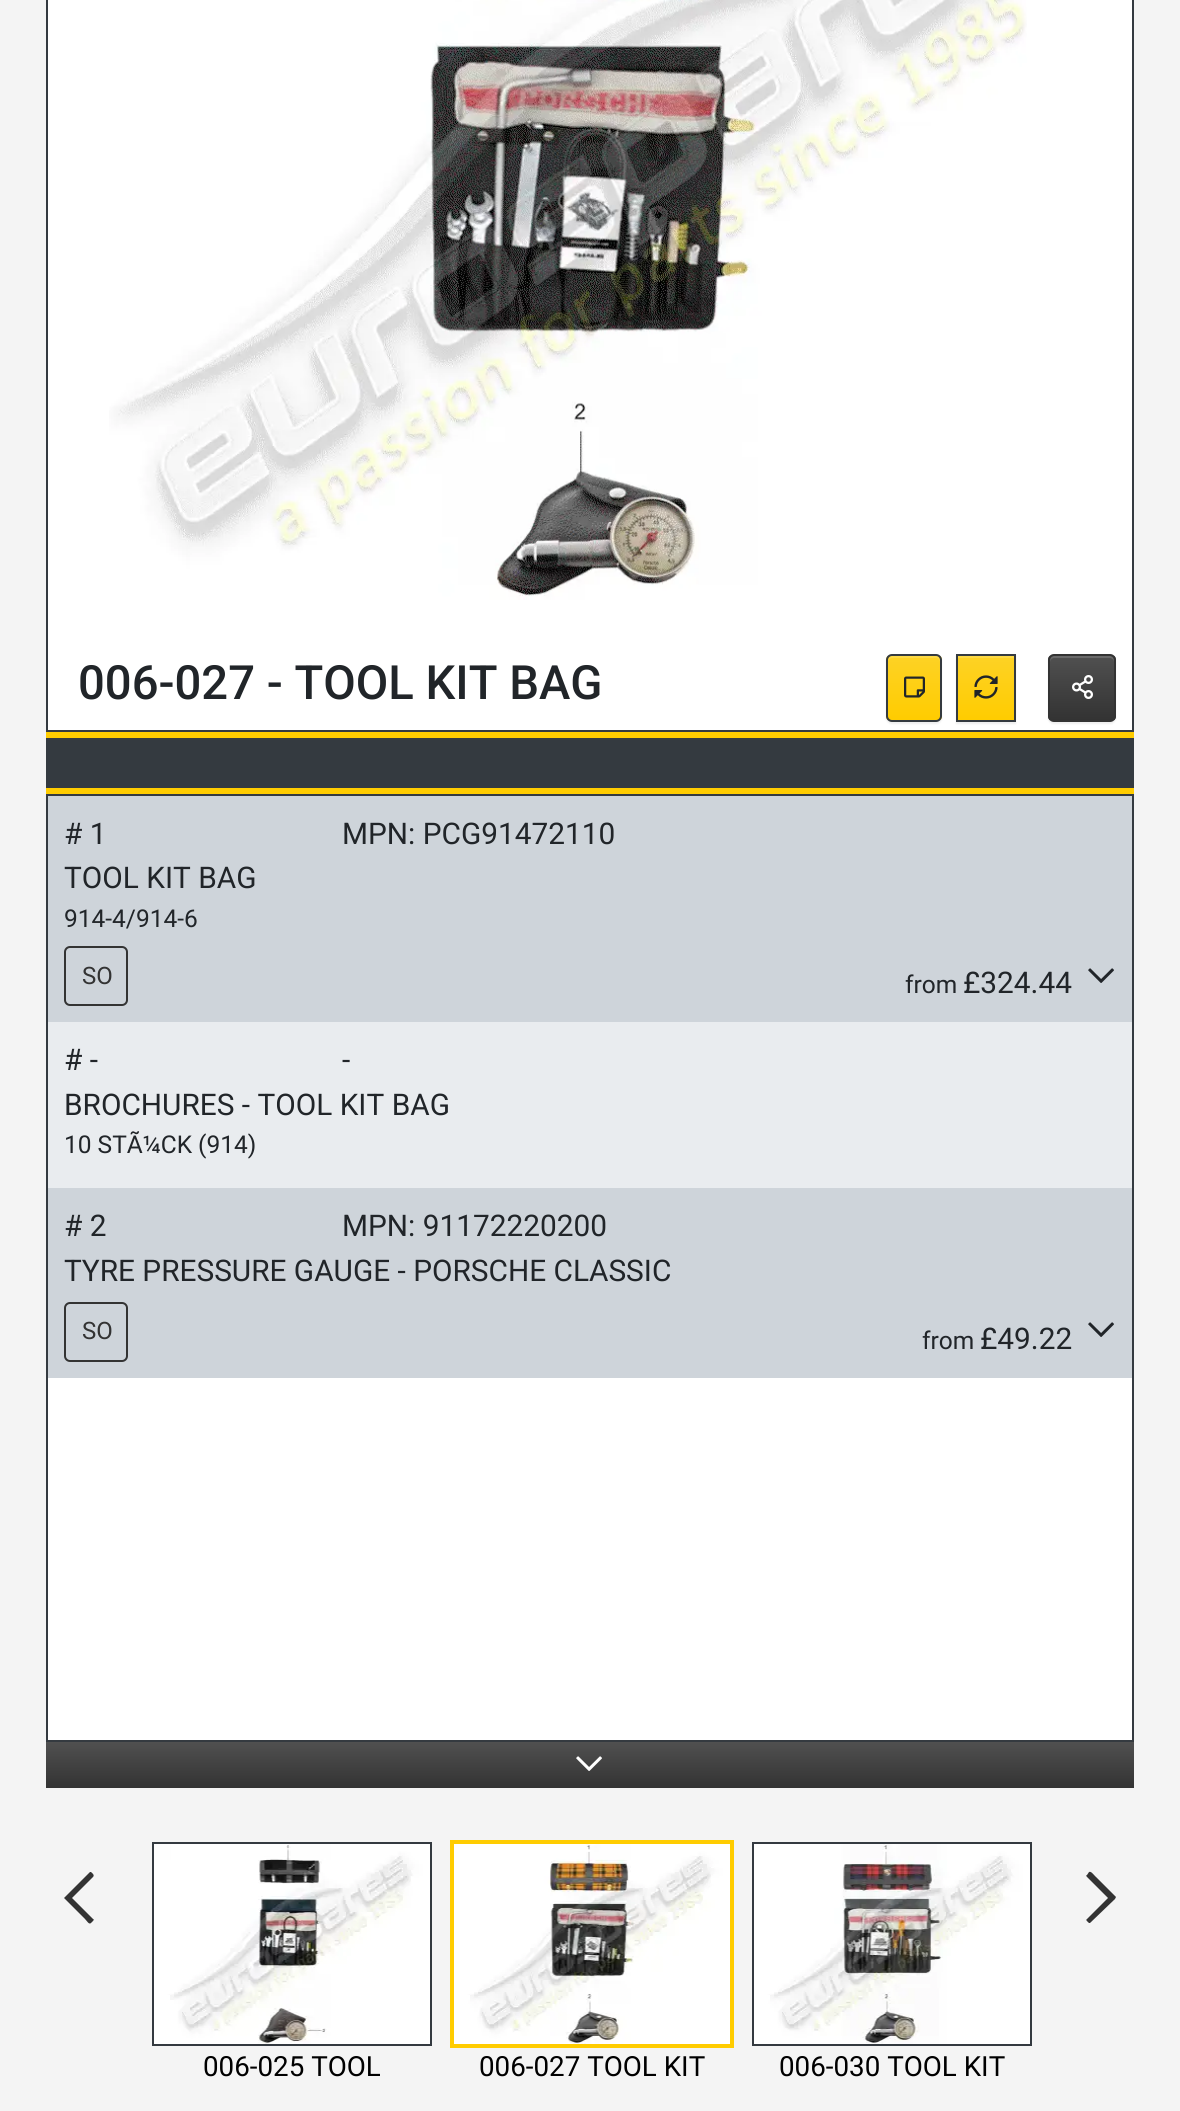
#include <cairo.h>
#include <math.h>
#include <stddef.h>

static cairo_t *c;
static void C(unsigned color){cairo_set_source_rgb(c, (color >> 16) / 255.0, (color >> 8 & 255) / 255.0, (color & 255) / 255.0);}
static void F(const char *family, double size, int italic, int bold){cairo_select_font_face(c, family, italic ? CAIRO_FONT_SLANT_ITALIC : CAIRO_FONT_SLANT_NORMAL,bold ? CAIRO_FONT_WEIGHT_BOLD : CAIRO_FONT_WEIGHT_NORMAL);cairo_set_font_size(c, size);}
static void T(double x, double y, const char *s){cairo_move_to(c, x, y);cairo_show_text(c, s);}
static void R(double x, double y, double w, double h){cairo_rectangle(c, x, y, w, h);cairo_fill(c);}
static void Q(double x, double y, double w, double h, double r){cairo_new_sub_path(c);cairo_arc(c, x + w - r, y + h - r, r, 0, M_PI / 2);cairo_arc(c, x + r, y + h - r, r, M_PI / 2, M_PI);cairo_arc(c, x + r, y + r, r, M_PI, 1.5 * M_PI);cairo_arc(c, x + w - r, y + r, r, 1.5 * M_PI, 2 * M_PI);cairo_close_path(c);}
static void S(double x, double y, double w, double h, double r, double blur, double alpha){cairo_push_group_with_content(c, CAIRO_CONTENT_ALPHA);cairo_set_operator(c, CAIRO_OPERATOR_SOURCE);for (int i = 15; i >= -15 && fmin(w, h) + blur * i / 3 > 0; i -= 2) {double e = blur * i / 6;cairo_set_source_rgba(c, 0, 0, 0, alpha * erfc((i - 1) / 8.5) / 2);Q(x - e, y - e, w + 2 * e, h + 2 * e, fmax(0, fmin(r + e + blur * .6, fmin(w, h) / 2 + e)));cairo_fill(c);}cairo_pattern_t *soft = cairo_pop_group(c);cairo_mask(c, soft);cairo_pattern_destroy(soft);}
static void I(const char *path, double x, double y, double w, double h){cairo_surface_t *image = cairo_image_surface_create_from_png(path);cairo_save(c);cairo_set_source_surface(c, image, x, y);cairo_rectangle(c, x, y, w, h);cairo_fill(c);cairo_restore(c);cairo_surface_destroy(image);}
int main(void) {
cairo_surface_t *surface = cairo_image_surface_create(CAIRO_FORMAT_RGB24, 1180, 2111);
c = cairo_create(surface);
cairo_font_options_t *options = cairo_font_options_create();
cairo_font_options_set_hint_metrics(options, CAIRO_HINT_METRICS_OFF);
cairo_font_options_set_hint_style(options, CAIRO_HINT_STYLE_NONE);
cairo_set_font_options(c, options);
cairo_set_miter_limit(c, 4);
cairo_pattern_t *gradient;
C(0xf4f4f4);
cairo_paint(c);
C(0xffffff);
cairo_rectangle(c,47,-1,1086,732);
cairo_fill_preserve(c);
C(0x343a40);
cairo_stroke(c);
I("1.png",109,0,918,600);
F("Roboto Medium",47.2,0,0);
C(0x212529);
T(78,699,"006-027 - TOOL KIT BAG");
C(0x000000);
S(886,656,56,68,6,1,.07);
cairo_save(c);
Q(886,654,56,68,6);
cairo_clip(c);
gradient = cairo_pattern_create_linear(914,656,914,720);
cairo_pattern_add_color_stop_rgba(gradient,0,0.992,0.824,0.145,1);
cairo_pattern_add_color_stop_rgba(gradient,1,1,0.8,0,1);
cairo_set_source(c,gradient);
cairo_pattern_destroy(gradient);
R(886,656,56,64);
cairo_restore(c);
C(0xfdd945);
cairo_new_path(c);
cairo_move_to(c,892,658);
cairo_line_to(c,936,658);
cairo_curve_to(c,938,658,940,660,940,662);
cairo_curve_to(c,940,654,936,656,929,656);
cairo_line_to(c,899,656);
cairo_curve_to(c,892,656,888,654,888,662);
cairo_curve_to(c,888,660,890,658,892,658);
cairo_close_path(c);
cairo_fill(c);
Q(887,655,54,66,5);
C(0x343a40);
cairo_stroke(c);
I("2.png",904,676,21,22);
C(0x000000);
S(956,656,60,68,0,1,.07);
gradient = cairo_pattern_create_linear(986,656,986,720);
cairo_pattern_add_color_stop_rgba(gradient,0,0.992,0.824,0.145,1);
cairo_pattern_add_color_stop_rgba(gradient,1,1,0.8,0,1);
cairo_set_source(c,gradient);
cairo_pattern_destroy(gradient);
R(958,658,56,62);
C(0xfdd945);
R(958,656,56,2);
cairo_rectangle(c,957,655,58,66);
C(0x343a40);
cairo_stroke(c);
I("3.png",974,675,24,24);
C(0x000000);
S(1048,656,68,68,6,1,.07);
cairo_save(c);
Q(1048,654,68,68,6);
cairo_clip(c);
gradient = cairo_pattern_create_linear(1082,656,1082,720);
cairo_pattern_add_color_stop_rgba(gradient,0,0.314,0.314,0.314,1);
cairo_pattern_add_color_stop_rgba(gradient,1,0.2,0.2,0.2,1);
cairo_set_source(c,gradient);
cairo_pattern_destroy(gradient);
R(1048,656,68,64);
cairo_restore(c);
C(0x6a6a6a);
cairo_new_path(c);
cairo_move_to(c,1054,658);
cairo_line_to(c,1110,658);
cairo_curve_to(c,1112,658,1114,660,1114,662);
cairo_curve_to(c,1114,654,1108,656,1101,656);
cairo_line_to(c,1063,656);
cairo_curve_to(c,1056,656,1050,654,1050,662);
cairo_curve_to(c,1050,660,1052,658,1054,658);
cairo_close_path(c);
cairo_fill(c);
Q(1049,655,66,66,5);
C(0x333333);
cairo_stroke(c);
I("4.png",1072,675,21,24);
C(0x343a40);
R(46,738,1088,50);
C(0xffcc00);
R(46,732,1088,6);
R(46,788,1088,6);
C(0xffffff);
R(48,1378,1084,362);
cairo_rectangle(c,47,795,1086,946);
C(0x343a40);
cairo_stroke(c);
C(0xced4da);
R(48,796,1084,226);
F("Roboto",29.8,0,0);
C(0x212529);
T(64,844,"# 1");
T(342,844,"MPN: PCG91472110");
T(64,888,"TOOL KIT BAG");
F("Roboto",24.5,0,0);
T(64,927,"914-4/914-6");
Q(65,947,62,58,5);
C(0x333333);
cairo_stroke(c);
F("Roboto",24,0,0);
T(82,984,"SO");
F("Roboto",24.5,0,0);
C(0x212529);
T(905,993,"from");
F("Roboto",29.8,0,0);
T(963,993,"£324.44");
I("5.png",1088,968,26,15);
C(0xe9ecef);
R(48,1022,1084,166);
C(0x212529);
T(64,1070,"# -");
T(342,1070,"-");
T(64,1115,"BROCHURES - TOOL KIT BAG");
F("Roboto",24.5,0,0);
T(64,1153,"10 STÃ¼CK (914)");
C(0xced4da);
R(48,1188,1084,190);
F("Roboto",29.8,0,0);
C(0x212529);
T(64,1236,"# 2");
T(342,1236,"MPN: 91172220200");
T(64,1281,"TYRE PRESSURE GAUGE - PORSCHE CLASSIC");
Q(65,1303,62,58,5);
C(0x333333);
cairo_stroke(c);
F("Roboto",24,0,0);
T(82,1339,"SO");
F("Roboto",24.5,0,0);
C(0x212529);
T(922,1349,"from");
F("Roboto",29.8,0,0);
T(980,1349,"£49.22");
I("5.png",1088,1322,26,15);
gradient = cairo_pattern_create_linear(590,1742,590,1788);
cairo_pattern_add_color_stop_rgba(gradient,0,0.314,0.314,0.314,1);
cairo_pattern_add_color_stop_rgba(gradient,1,0.2,0.2,0.2,1);
cairo_set_source(c,gradient);
cairo_pattern_destroy(gradient);
R(46,1742,1088,46);
I("6.png",576,1756,26,15);
C(0x333333);
cairo_new_path(c);
cairo_move_to(c,91,1923);
cairo_curve_to(c,89,1925,87,1921,85,1919);
cairo_line_to(c,64,1898);
cairo_line_to(c,65,1897);
cairo_line_to(c,90,1872);
cairo_line_to(c,91,1872);
cairo_curve_to(c,92,1873,95,1875,93,1877);
cairo_line_to(c,72,1898);
cairo_line_to(c,93,1919);
cairo_curve_to(c,94,1919,94,1920,93,1921);
cairo_close_path(c);
cairo_fill(c);
cairo_new_path(c);
cairo_move_to(c,1089,1872);
cairo_curve_to(c,1091,1871,1093,1874,1095,1876);
cairo_line_to(c,1116,1897);
cairo_line_to(c,1115,1899);
cairo_line_to(c,1090,1923);
cairo_line_to(c,1089,1923);
cairo_curve_to(c,1088,1922,1085,1920,1087,1919);
cairo_line_to(c,1108,1898);
cairo_line_to(c,1087,1877);
cairo_curve_to(c,1086,1876,1086,1875,1087,1875);
cairo_close_path(c);
cairo_fill(c);
cairo_rectangle(c,153,1843,278,202);
C(0x343a40);
cairo_stroke(c);
I("7.png",154,1844,276,200);
F("Roboto",27.75,0,0);
C(0x000000);
T(203,2076,"006-025 TOOL");
cairo_rectangle(c,452,1842,280,204);
C(0xffcc00);
cairo_set_line_width(c,4);
cairo_stroke(c);
I("8.png",454,1844,276,200);
C(0x000000);
T(479,2076,"006-027 TOOL KIT");
cairo_rectangle(c,753,1843,278,202);
C(0x343a40);
cairo_set_line_width(c,2);
cairo_stroke(c);
I("9.png",754,1844,276,200);
C(0x000000);
T(779,2076,"006-030 TOOL KIT");
cairo_surface_write_to_png(surface, "o.png");
cairo_font_options_destroy(options);
cairo_destroy(c);
cairo_surface_destroy(surface);
return 0;
}
